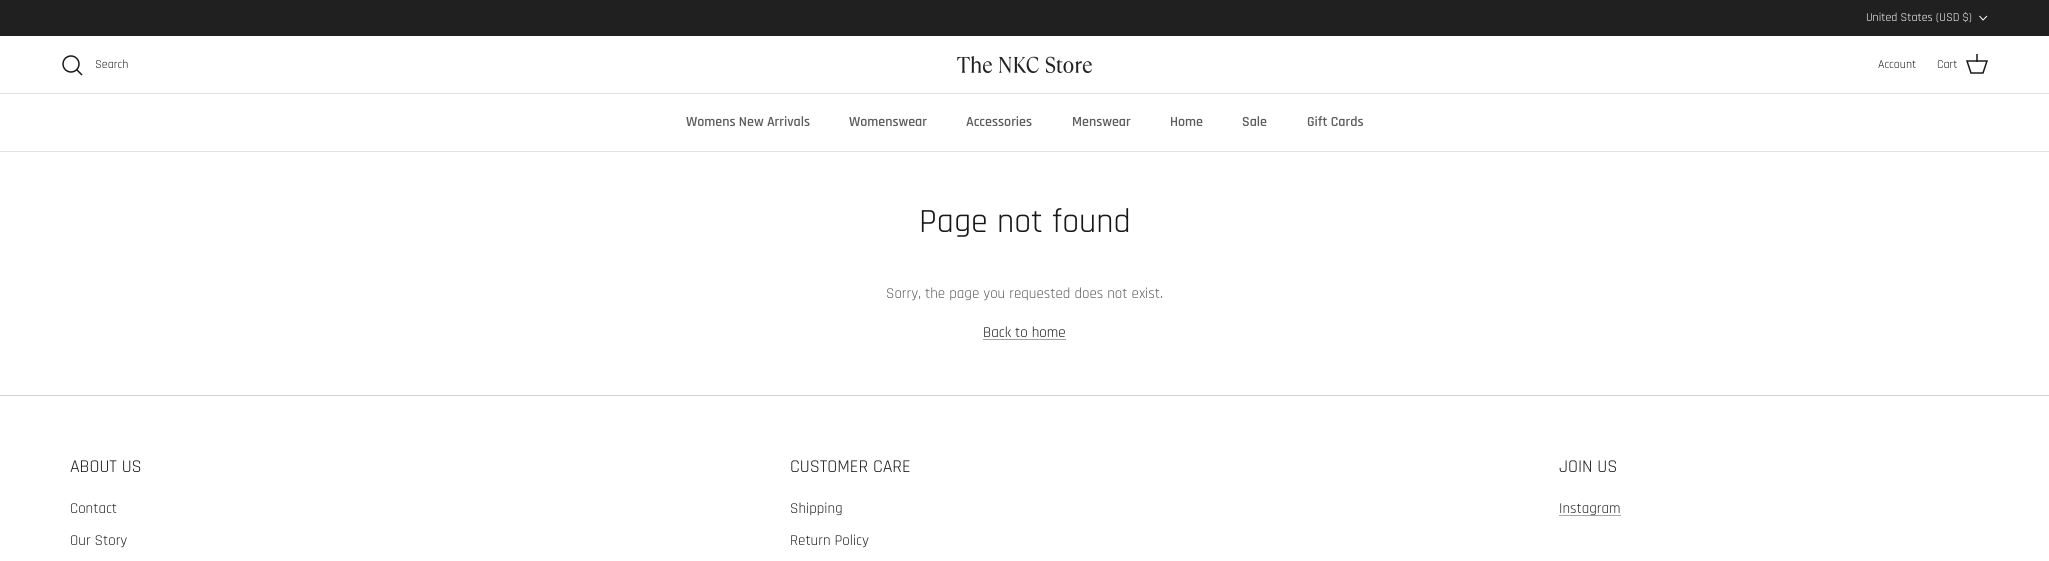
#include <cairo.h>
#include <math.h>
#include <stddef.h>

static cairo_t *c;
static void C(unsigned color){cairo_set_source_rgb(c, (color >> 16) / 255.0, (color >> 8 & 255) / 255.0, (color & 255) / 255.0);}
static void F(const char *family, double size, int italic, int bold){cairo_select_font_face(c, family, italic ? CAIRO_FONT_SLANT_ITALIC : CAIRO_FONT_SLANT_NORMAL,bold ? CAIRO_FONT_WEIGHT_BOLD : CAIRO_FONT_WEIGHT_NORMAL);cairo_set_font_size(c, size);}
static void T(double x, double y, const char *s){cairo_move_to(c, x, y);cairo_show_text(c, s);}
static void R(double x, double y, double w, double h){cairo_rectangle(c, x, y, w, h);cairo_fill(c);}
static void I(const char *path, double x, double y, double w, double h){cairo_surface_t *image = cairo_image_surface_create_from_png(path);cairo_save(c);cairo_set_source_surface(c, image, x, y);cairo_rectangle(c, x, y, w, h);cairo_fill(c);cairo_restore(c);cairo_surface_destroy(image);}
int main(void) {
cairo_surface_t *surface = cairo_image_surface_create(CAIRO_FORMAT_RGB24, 2049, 561);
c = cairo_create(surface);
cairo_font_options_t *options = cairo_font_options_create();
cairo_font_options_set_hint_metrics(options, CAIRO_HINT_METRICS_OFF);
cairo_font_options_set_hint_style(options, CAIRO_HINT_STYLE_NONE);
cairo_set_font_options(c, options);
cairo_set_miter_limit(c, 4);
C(0xffffff);
cairo_paint(c);
C(0x202020);
R(0,0,2049,36);
F("Rajdhani",12,0,0);
C(0xffffff);
T(1866,21,"United States (USD $)");
cairo_new_path(c);
cairo_move_to(c,1987,16);
cairo_line_to(c,1983,20);
cairo_line_to(c,1979.5,16);
cairo_set_line_width(c,1);
cairo_stroke(c);
C(0xdfe3e8);
R(0,93,2049,1);
cairo_arc(c,71,64,8,0,2 * M_PI);
C(0x171717);
cairo_set_line_width(c,1.5);
cairo_stroke(c);
T(95,68,"Search");
cairo_new_path(c);
cairo_move_to(c,77,70);
cairo_line_to(c,81.5,74.5);
cairo_set_line_cap(c,CAIRO_LINE_CAP_SQUARE);
cairo_stroke(c);
I("1.png",957,56,135,17);
T(1878,68,"Account");
T(1937,68,"Cart");
cairo_new_path(c);
cairo_move_to(c,1967,61);
cairo_line_to(c,1987,61);
cairo_line_to(c,1983,73);
cairo_line_to(c,1971,73);
cairo_close_path(c);
cairo_set_line_cap(c,CAIRO_LINE_CAP_BUTT);
cairo_stroke(c);
cairo_set_source_rgba(c,0.09,0.09,0.09,0.75);
R(1976,54,2,8);
C(0xdfe3e8);
R(0,151,2049,1);
F("Rajdhani SemiBold",14,0,0);
C(0x5c5c5c);
T(686,126,"Womens New Arrivals");
T(849,126,"Womenswear");
T(966,126,"Accessories");
T(1072,126,"Menswear");
T(1170,126,"Home");
T(1242,126,"Sale");
T(1307,126,"Gift Cards");
F("Rajdhani",34,0,0);
C(0x171717);
T(919,232,"Page not found");
F("Rajdhani",15,0,0);
C(0x5c5c5c);
T(886,298,"Sorry, the page you requested does not exist.");
C(0x171717);
T(983,337,"Back to home");
C(0xa2a2a2);
R(983,339,83,1);
C(0xd0d3d7);
R(0,395,2049,1);
F("Rajdhani",18,0,0);
C(0x171717);
T(70,472,"ABOUT US");
F("Rajdhani",15,0,0);
C(0x232323);
T(70,513,"Contact");
T(70,545,"Our Story");
F("Rajdhani",18,0,0);
C(0x171717);
T(790,472,"CUSTOMER CARE");
F("Rajdhani",15,0,0);
C(0x232323);
T(790,513,"Shipping");
T(790,545,"Return Policy");
F("Rajdhani",18,0,0);
C(0x171717);
T(1559,472,"JOIN US");
C(0xa7a7a7);
R(1559,515,62,1);
F("Rajdhani",15,0,0);
C(0x232323);
T(1559,513,"Instagram");
cairo_surface_write_to_png(surface, "o.png");
cairo_font_options_destroy(options);
cairo_destroy(c);
cairo_surface_destroy(surface);
return 0;
}
